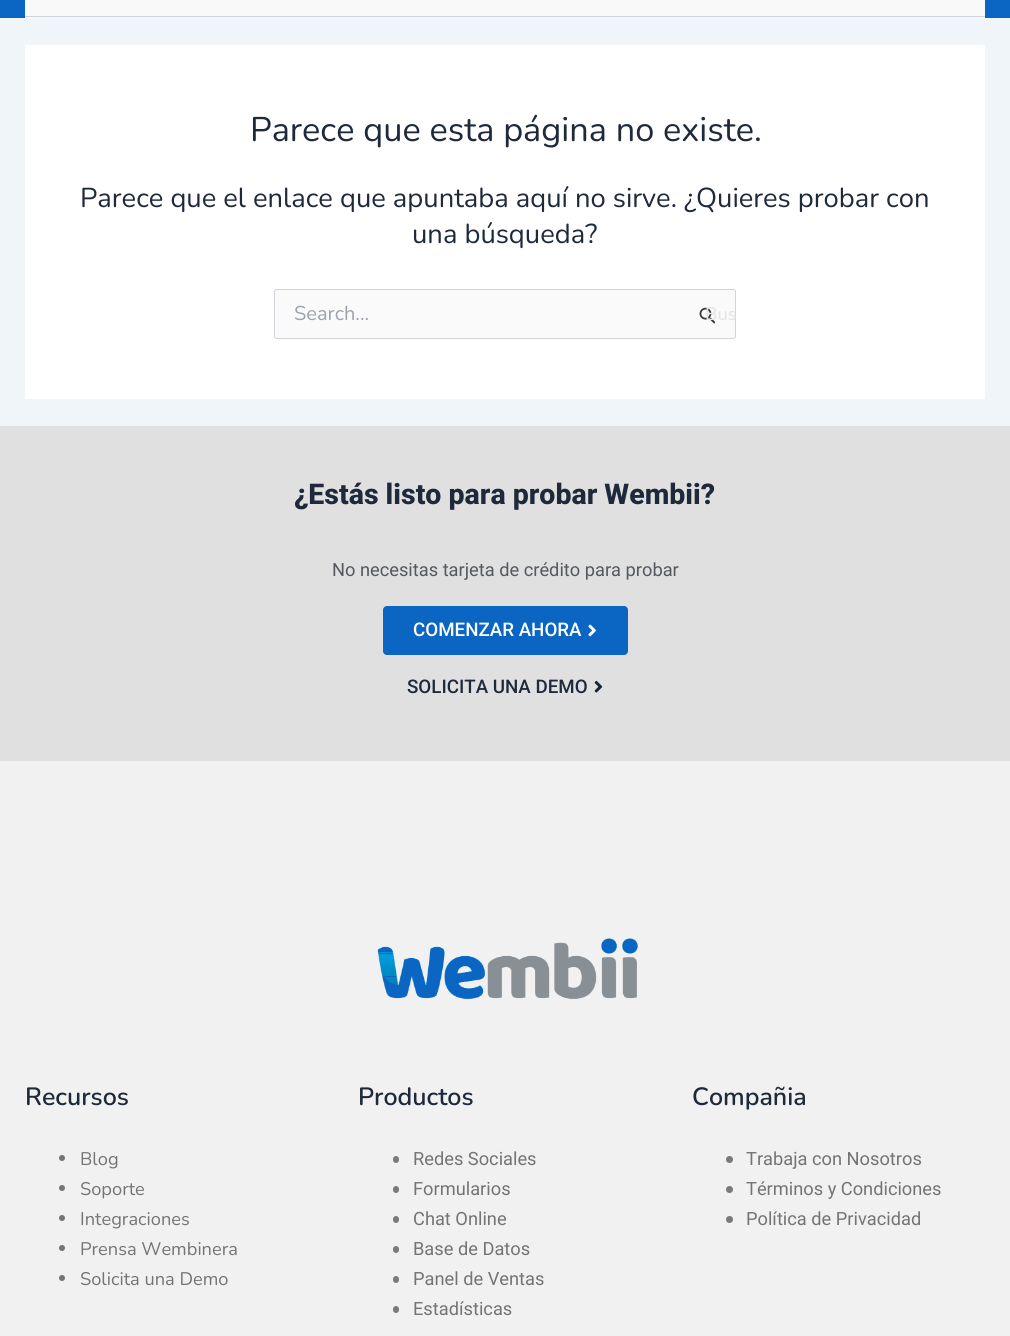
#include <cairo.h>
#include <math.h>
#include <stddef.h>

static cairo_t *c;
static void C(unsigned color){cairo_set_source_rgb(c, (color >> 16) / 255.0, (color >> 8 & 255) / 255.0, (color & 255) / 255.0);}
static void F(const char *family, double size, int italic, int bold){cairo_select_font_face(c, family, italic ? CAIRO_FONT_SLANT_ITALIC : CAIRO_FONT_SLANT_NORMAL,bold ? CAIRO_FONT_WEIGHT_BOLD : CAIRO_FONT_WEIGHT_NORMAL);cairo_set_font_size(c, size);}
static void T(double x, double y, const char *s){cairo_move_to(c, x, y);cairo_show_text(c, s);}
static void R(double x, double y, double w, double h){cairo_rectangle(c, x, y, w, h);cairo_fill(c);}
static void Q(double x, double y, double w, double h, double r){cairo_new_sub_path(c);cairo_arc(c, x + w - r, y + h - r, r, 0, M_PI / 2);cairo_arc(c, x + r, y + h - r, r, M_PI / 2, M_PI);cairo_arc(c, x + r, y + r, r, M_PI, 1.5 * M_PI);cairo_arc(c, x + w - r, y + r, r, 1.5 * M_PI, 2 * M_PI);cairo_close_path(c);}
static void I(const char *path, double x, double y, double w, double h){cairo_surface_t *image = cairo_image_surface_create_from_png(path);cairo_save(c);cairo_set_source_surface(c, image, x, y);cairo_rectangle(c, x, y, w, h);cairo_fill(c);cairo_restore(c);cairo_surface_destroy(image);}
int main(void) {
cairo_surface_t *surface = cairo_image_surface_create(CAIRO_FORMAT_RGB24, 1010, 1336);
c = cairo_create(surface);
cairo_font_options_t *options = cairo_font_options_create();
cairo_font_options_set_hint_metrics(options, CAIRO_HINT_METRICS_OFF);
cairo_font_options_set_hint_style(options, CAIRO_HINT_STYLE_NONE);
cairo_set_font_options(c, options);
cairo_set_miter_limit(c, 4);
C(0xf0f5fa);
cairo_paint(c);
C(0x0b65c2);
R(0,0,1010,18);
C(0xf9f9f9);
R(25,0,960,18);
C(0xd1d5db);
R(25,16,960,1);
C(0xffffff);
R(25,45,960,354);
F("Nunito",34.25,0,0);
C(0x1e293b);
T(250,141,"Parece que esta página no existe.");
F("Nunito",27.35,0,0);
T(80,207,"Parece que el enlace que apuntaba aquí no sirve. ¿Quieres probar con");
T(412,243,"una búsqueda?");
C(0xfafafa);
Q(274.5,289.5,461,49,2);
cairo_fill_preserve(c);
C(0xd1d5db);
cairo_set_line_width(c,1);
cairo_stroke(c);
F("Nunito",20,0,0);
C(0x9ca3af);
T(294,320,"Search...");
I("1.png",699,307,16,17);
F("Nunito Medium",18.25,0,0);
C(0xe5e5e5);
T(705,320,"Bus");
C(0xe0e0e0);
R(0,426,1010,335);
F("Roboto ExtraBold",28.5,0,0);
C(0x1e293b);
T(294,504,"¿Estás listo para probar Wembii?");
F("Roboto",18.25,0,0);
C(0x54595f);
T(332,576,"No necesitas tarjeta de crédito para probar");
C(0x0b65c2);
Q(383,606,245,49,4);
cairo_fill(c);
F("Roboto Medium",18.75,0,0);
C(0xffffff);
T(413,636,"COMENZAR AHORA");
I("2.png",588,624,8,13);
C(0x1e293b);
T(407,693,"SOLICITA UNA DEMO");
I("3.png",594,680,9,13);
C(0xf1f1f1);
R(0,761,1010,575);
I("4.png",377,938,261,62);
F("Nunito SemiBold",25,0,0);
C(0x1e293b);
T(25,1105,"Recursos");
C(0x747474);
cairo_new_path(c);
cairo_arc(c,62,1158,3,0,2 * M_PI);
cairo_fill(c);
F("Nunito",18.25,0,0);
T(80,1165,"Blog");
cairo_new_path(c);
cairo_arc(c,62,1188,3,0,2 * M_PI);
cairo_fill(c);
T(80,1195,"Soporte");
cairo_new_path(c);
cairo_arc(c,62,1218,3,0,2 * M_PI);
cairo_fill(c);
T(80,1225,"Integraciones");
cairo_new_path(c);
cairo_arc(c,62,1248,3,0,2 * M_PI);
cairo_fill(c);
T(80,1255,"Prensa Wembinera");
cairo_new_path(c);
cairo_arc(c,62,1278,3,0,2 * M_PI);
cairo_fill(c);
T(80,1285,"Solicita una Demo");
F("Nunito SemiBold",25,0,0);
C(0x1e293b);
T(358,1105,"Productos");
C(0x7a7a7a);
Q(393,1156,6,7,3);
cairo_fill(c);
F("Roboto",18.25,0,0);
C(0x747474);
T(413,1165,"Redes Sociales");
C(0x7a7a7a);
Q(393,1186,6,7,3);
cairo_fill(c);
C(0x747474);
T(413,1195,"Formularios");
C(0x7a7a7a);
Q(393,1216,6,7,3);
cairo_fill(c);
C(0x747474);
T(413,1225,"Chat Online");
C(0x7a7a7a);
Q(393,1246,6,7,3);
cairo_fill(c);
C(0x747474);
T(413,1255,"Base de Datos");
C(0x7a7a7a);
Q(393,1276,6,7,3);
cairo_fill(c);
C(0x747474);
T(413,1285,"Panel de Ventas");
C(0x7a7a7a);
Q(393,1306,6,7,3);
cairo_fill(c);
C(0x747474);
T(413,1315,"Estadísticas");
F("Nunito SemiBold",25,0,0);
C(0x1e293b);
T(692,1105,"Compañia");
C(0x7a7a7a);
cairo_new_path(c);
cairo_arc(c,729.5,1159.5,3.5,0,2 * M_PI);
cairo_fill(c);
F("Roboto",18.25,0,0);
C(0x747474);
T(746,1165,"Trabaja con Nosotros");
C(0x7a7a7a);
cairo_new_path(c);
cairo_arc(c,729.5,1189.5,3.5,0,2 * M_PI);
cairo_fill(c);
C(0x747474);
T(746,1195,"Términos y Condiciones");
C(0x7a7a7a);
cairo_new_path(c);
cairo_arc(c,729.5,1219.5,3.5,0,2 * M_PI);
cairo_fill(c);
C(0x747474);
T(746,1225,"Política de Privacidad");
cairo_surface_write_to_png(surface, "o.png");
cairo_font_options_destroy(options);
cairo_destroy(c);
cairo_surface_destroy(surface);
return 0;
}
